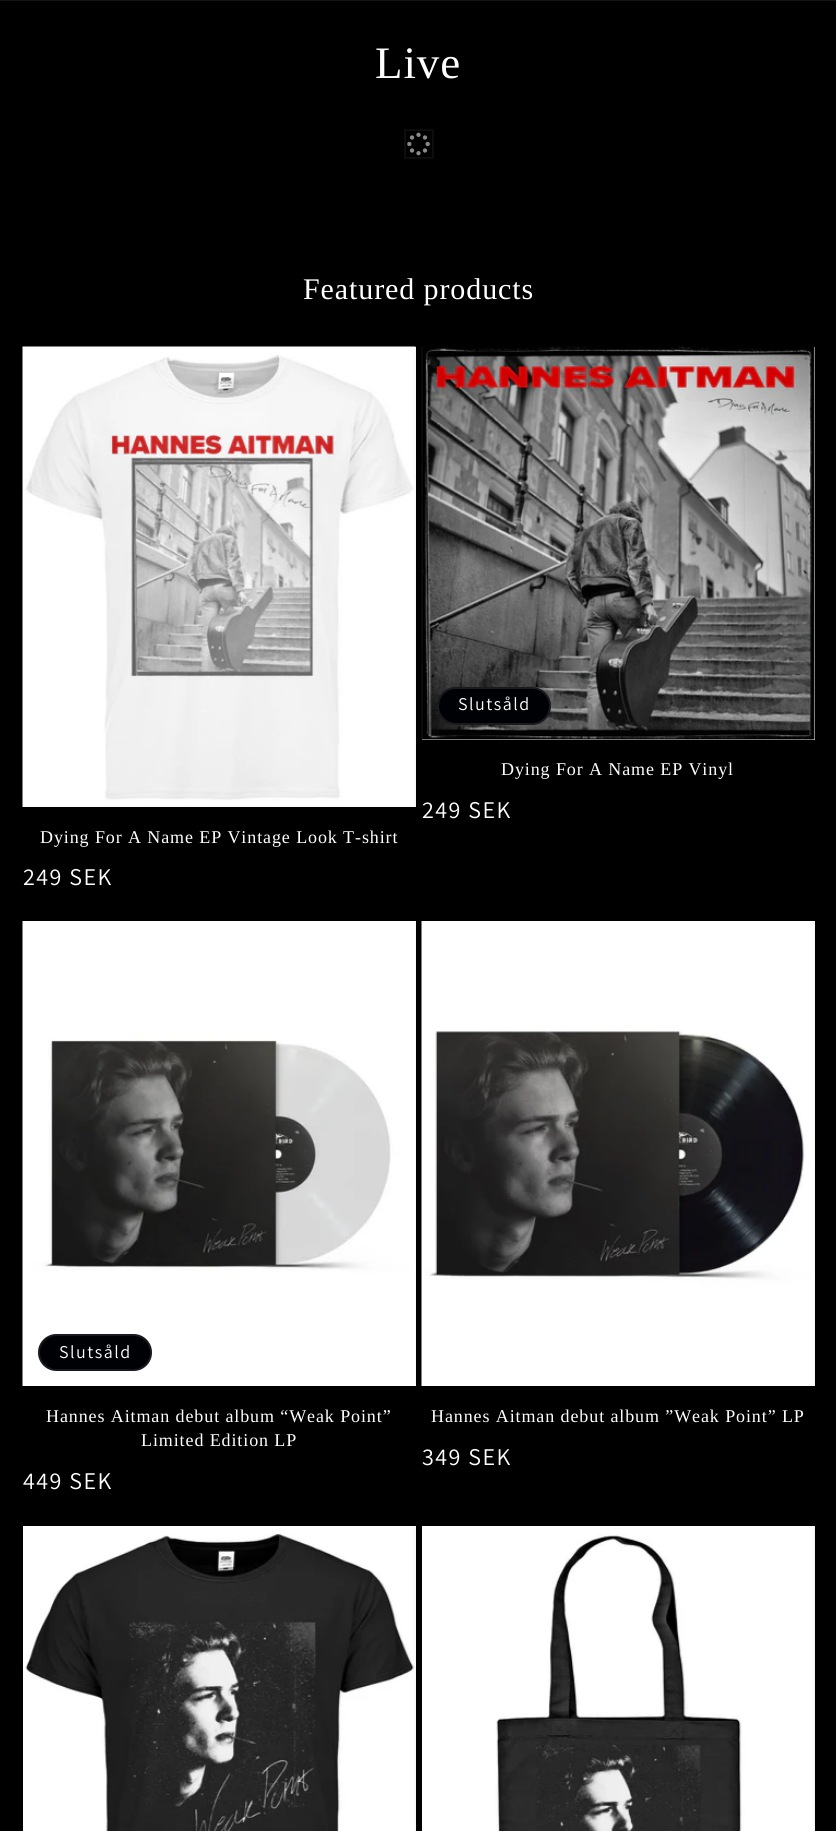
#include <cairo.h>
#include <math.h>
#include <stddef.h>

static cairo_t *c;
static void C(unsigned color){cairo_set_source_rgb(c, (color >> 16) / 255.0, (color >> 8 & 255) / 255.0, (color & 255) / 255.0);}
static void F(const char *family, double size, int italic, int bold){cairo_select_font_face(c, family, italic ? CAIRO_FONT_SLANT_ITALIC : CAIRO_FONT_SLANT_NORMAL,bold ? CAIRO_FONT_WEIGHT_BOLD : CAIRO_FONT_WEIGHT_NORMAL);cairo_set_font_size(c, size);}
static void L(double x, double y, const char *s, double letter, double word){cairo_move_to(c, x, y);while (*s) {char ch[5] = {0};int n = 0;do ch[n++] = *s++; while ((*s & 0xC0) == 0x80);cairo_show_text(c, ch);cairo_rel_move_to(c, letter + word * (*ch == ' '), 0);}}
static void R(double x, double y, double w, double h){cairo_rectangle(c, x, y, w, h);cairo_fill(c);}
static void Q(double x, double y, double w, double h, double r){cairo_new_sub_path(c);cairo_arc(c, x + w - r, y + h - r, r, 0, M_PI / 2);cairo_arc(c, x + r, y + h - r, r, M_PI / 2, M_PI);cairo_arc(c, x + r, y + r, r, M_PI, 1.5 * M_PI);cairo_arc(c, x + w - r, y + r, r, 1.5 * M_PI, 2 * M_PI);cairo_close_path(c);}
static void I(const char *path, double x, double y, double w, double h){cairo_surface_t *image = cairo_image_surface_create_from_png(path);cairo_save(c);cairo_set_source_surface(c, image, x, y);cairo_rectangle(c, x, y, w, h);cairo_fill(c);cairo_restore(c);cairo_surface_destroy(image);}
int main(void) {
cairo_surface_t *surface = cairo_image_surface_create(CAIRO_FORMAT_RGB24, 836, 1831);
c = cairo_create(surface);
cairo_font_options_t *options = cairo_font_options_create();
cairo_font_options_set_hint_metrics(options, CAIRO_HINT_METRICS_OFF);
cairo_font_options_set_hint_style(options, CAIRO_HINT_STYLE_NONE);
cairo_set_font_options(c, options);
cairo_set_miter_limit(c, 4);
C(0x000000);
cairo_paint(c);
C(0x141414);
R(0,0,836,1);
F("Liberation Serif",45,0,0);
C(0xffffff);
L(375,78,"Live",.9,0);
cairo_rectangle(c,405,130,28,28);
C(0x0d0d0d);
cairo_stroke(c);
I("1.png",407,132,23,24);
F("Liberation Serif",30,0,0);
C(0xffffff);
L(303,299,"Featured products",.9,0);
C(0xf3f3f3);
R(422,347,393,393);
I("2.png",421,346,394,394);
C(0x000105);
Q(437,687,114,38,19);
cairo_fill(c);
Q(438,688,112,36,18);
cairo_set_source_rgba(c,1,1,1,0.1);
cairo_stroke(c);
F("Assistant",18,0,0);
C(0xffffff);
L(458,710,"Slutsåld",1.5,0);
F("Liberation Serif",18,0,0);
L(501,775,"Dying For A Name EP Vinyl",.9,0);
F("Assistant",24,0,0);
L(422,818,"249 SEK",1.5,0);
C(0xf3f3f3);
R(415,347,1,460);
I("3.png",22,346,394,461);
F("Liberation Serif",18,0,0);
C(0xffffff);
L(40,843,"Dying For A Name EP Vintage Look T-shirt",.9,0);
F("Assistant",24,0,0);
L(23,885,"249 SEK",1.5,0);
C(0xf3f3f3);
R(415,921,1,465);
I("4.png",22,921,394,465);
C(0x000105);
Q(38,1334,114,37,18.5);
cairo_fill(c);
Q(39,1335,112,35,17.5);
cairo_set_source_rgba(c,1,1,1,0.1);
cairo_stroke(c);
F("Assistant",18,0,0);
C(0xffffff);
L(59,1358,"Slutsåld",1.5,0);
F("Liberation Serif",18,0,0);
L(46,1422,"Hannes Aitman debut album “Weak Point”",.9,0);
L(141,1446,"Limited Edition LP",.9,0);
F("Assistant",24,0,0);
L(23,1489,"449 SEK",1.5,0);
C(0xf3f3f3);
R(814,921,1,465);
I("5.png",421,921,394,465);
F("Liberation Serif",18,0,0);
C(0xffffff);
L(431,1422,"Hannes Aitman debut album ”Weak Point” LP",.9,0);
F("Assistant",24,0,0);
L(422,1465,"349 SEK",1.5,0);
C(0xf3f3f3);
R(415,1526,1,305);
I("6.png",23,1526,393,305);
R(814,1526,1,305);
I("7.png",422,1526,392,305);
cairo_surface_write_to_png(surface, "o.png");
cairo_font_options_destroy(options);
cairo_destroy(c);
cairo_surface_destroy(surface);
return 0;
}
